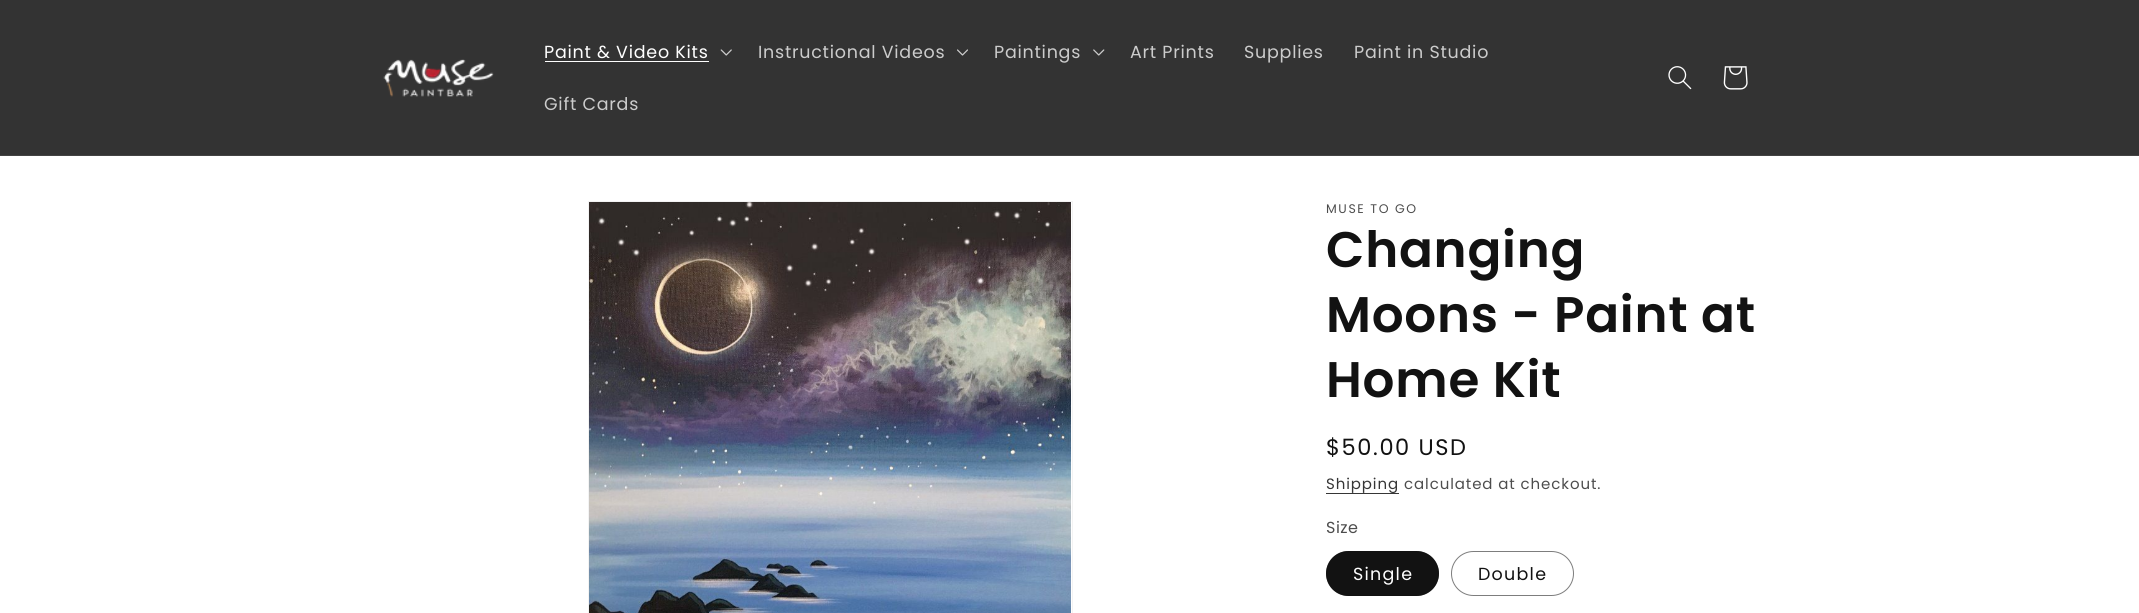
#include <cairo.h>
#include <math.h>
#include <stddef.h>

static cairo_t *c;
static void C(unsigned color){cairo_set_source_rgb(c, (color >> 16) / 255.0, (color >> 8 & 255) / 255.0, (color & 255) / 255.0);}
static void F(const char *family, double size, int italic, int bold){cairo_select_font_face(c, family, italic ? CAIRO_FONT_SLANT_ITALIC : CAIRO_FONT_SLANT_NORMAL,bold ? CAIRO_FONT_WEIGHT_BOLD : CAIRO_FONT_WEIGHT_NORMAL);cairo_set_font_size(c, size);}
static void L(double x, double y, const char *s, double letter, double word){cairo_move_to(c, x, y);while (*s) {char ch[5] = {0};int n = 0;do ch[n++] = *s++; while ((*s & 0xC0) == 0x80);cairo_show_text(c, ch);cairo_rel_move_to(c, letter + word * (*ch == ' '), 0);}}
static void R(double x, double y, double w, double h){cairo_rectangle(c, x, y, w, h);cairo_fill(c);}
static void Q(double x, double y, double w, double h, double r){cairo_new_sub_path(c);cairo_arc(c, x + w - r, y + h - r, r, 0, M_PI / 2);cairo_arc(c, x + r, y + h - r, r, M_PI / 2, M_PI);cairo_arc(c, x + r, y + r, r, M_PI, 1.5 * M_PI);cairo_arc(c, x + w - r, y + r, r, 1.5 * M_PI, 2 * M_PI);cairo_close_path(c);}
static void I(const char *path, double x, double y, double w, double h){cairo_surface_t *image = cairo_image_surface_create_from_png(path);cairo_save(c);cairo_set_source_surface(c, image, x, y);cairo_rectangle(c, x, y, w, h);cairo_fill(c);cairo_restore(c);cairo_surface_destroy(image);}
int main(void) {
cairo_surface_t *surface = cairo_image_surface_create(CAIRO_FORMAT_RGB24, 2139, 613);
c = cairo_create(surface);
cairo_font_options_t *options = cairo_font_options_create();
cairo_font_options_set_hint_metrics(options, CAIRO_HINT_METRICS_OFF);
cairo_font_options_set_hint_style(options, CAIRO_HINT_STYLE_NONE);
cairo_set_font_options(c, options);
cairo_set_miter_limit(c, 4);
C(0xffffff);
cairo_paint(c);
C(0x333333);
R(0,0,2139,155);
C(0x434343);
R(0,155,2139,1);
I("1.png",383,59,111,38);
F("Poppins",17.5,0,0);
C(0xffffff);
L(544,58,"Paint & Video Kits",.75,0);
R(545,61,164,1);
I("2.png",720,49,12,7);
C(0xcccccc);
L(758,58,"Instructional Videos",.75,0);
I("3.png",957,49,11,7);
L(994,58,"Paintings",.75,0);
I("4.png",1093,49,12,7);
L(1130,58,"Art Prints",.75,0);
L(1244,58,"Supplies",.75,0);
L(1354,58,"Paint in Studio",.75,0);
L(544,110,"Gift Cards",.75,0);
I("5.png",1668,66,24,24);
I("6.png",1723,66,25,24);
cairo_rectangle(c,588.5,201.5,484,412);
C(0xf3f3f3);
cairo_set_line_width(c,1);
cairo_stroke(c);
I("7.png",589,202,482,411);
F("Poppins",12.5,0,0);
C(0x4d4d4d);
L(1326,213,"MUSE TO GO",1.6,0);
F("Poppins SemiBold",50,0,0);
C(0x121212);
L(1326,267,"Changing",.75,0);
L(1326,332,"Moons - Paint at",.75,0);
L(1326,397,"Home Kit",.75,0);
F("Poppins",22.5,0,0);
L(1326,455,"$50.00 USD",1.6,0);
C(0x363636);
R(1326,493,73,1);
F("Poppins",15,0,0);
L(1326,489,"Shipping",.9,0);
C(0x4d4d4d);
L(1404,489,"calculated at checkout.",.9,0);
F("Poppins",16,0,0);
L(1326,533,"Size",.5,0);
C(0x121212);
Q(1326,551,113,45,22.5);
cairo_fill(c);
Q(1326.5,551.5,112,44,22);
cairo_set_source_rgba(c,0.071,0.071,0.071,0.55);
cairo_stroke(c);
F("Poppins",17.5,0,0);
C(0xffffff);
L(1353,580,"Single",1.25,0);
Q(1451.5,551.5,122,44,22);
C(0x7d7d7d);
cairo_stroke(c);
C(0x121212);
L(1478,580,"Double",1.25,0);
cairo_surface_write_to_png(surface, "o.png");
cairo_font_options_destroy(options);
cairo_destroy(c);
cairo_surface_destroy(surface);
return 0;
}
